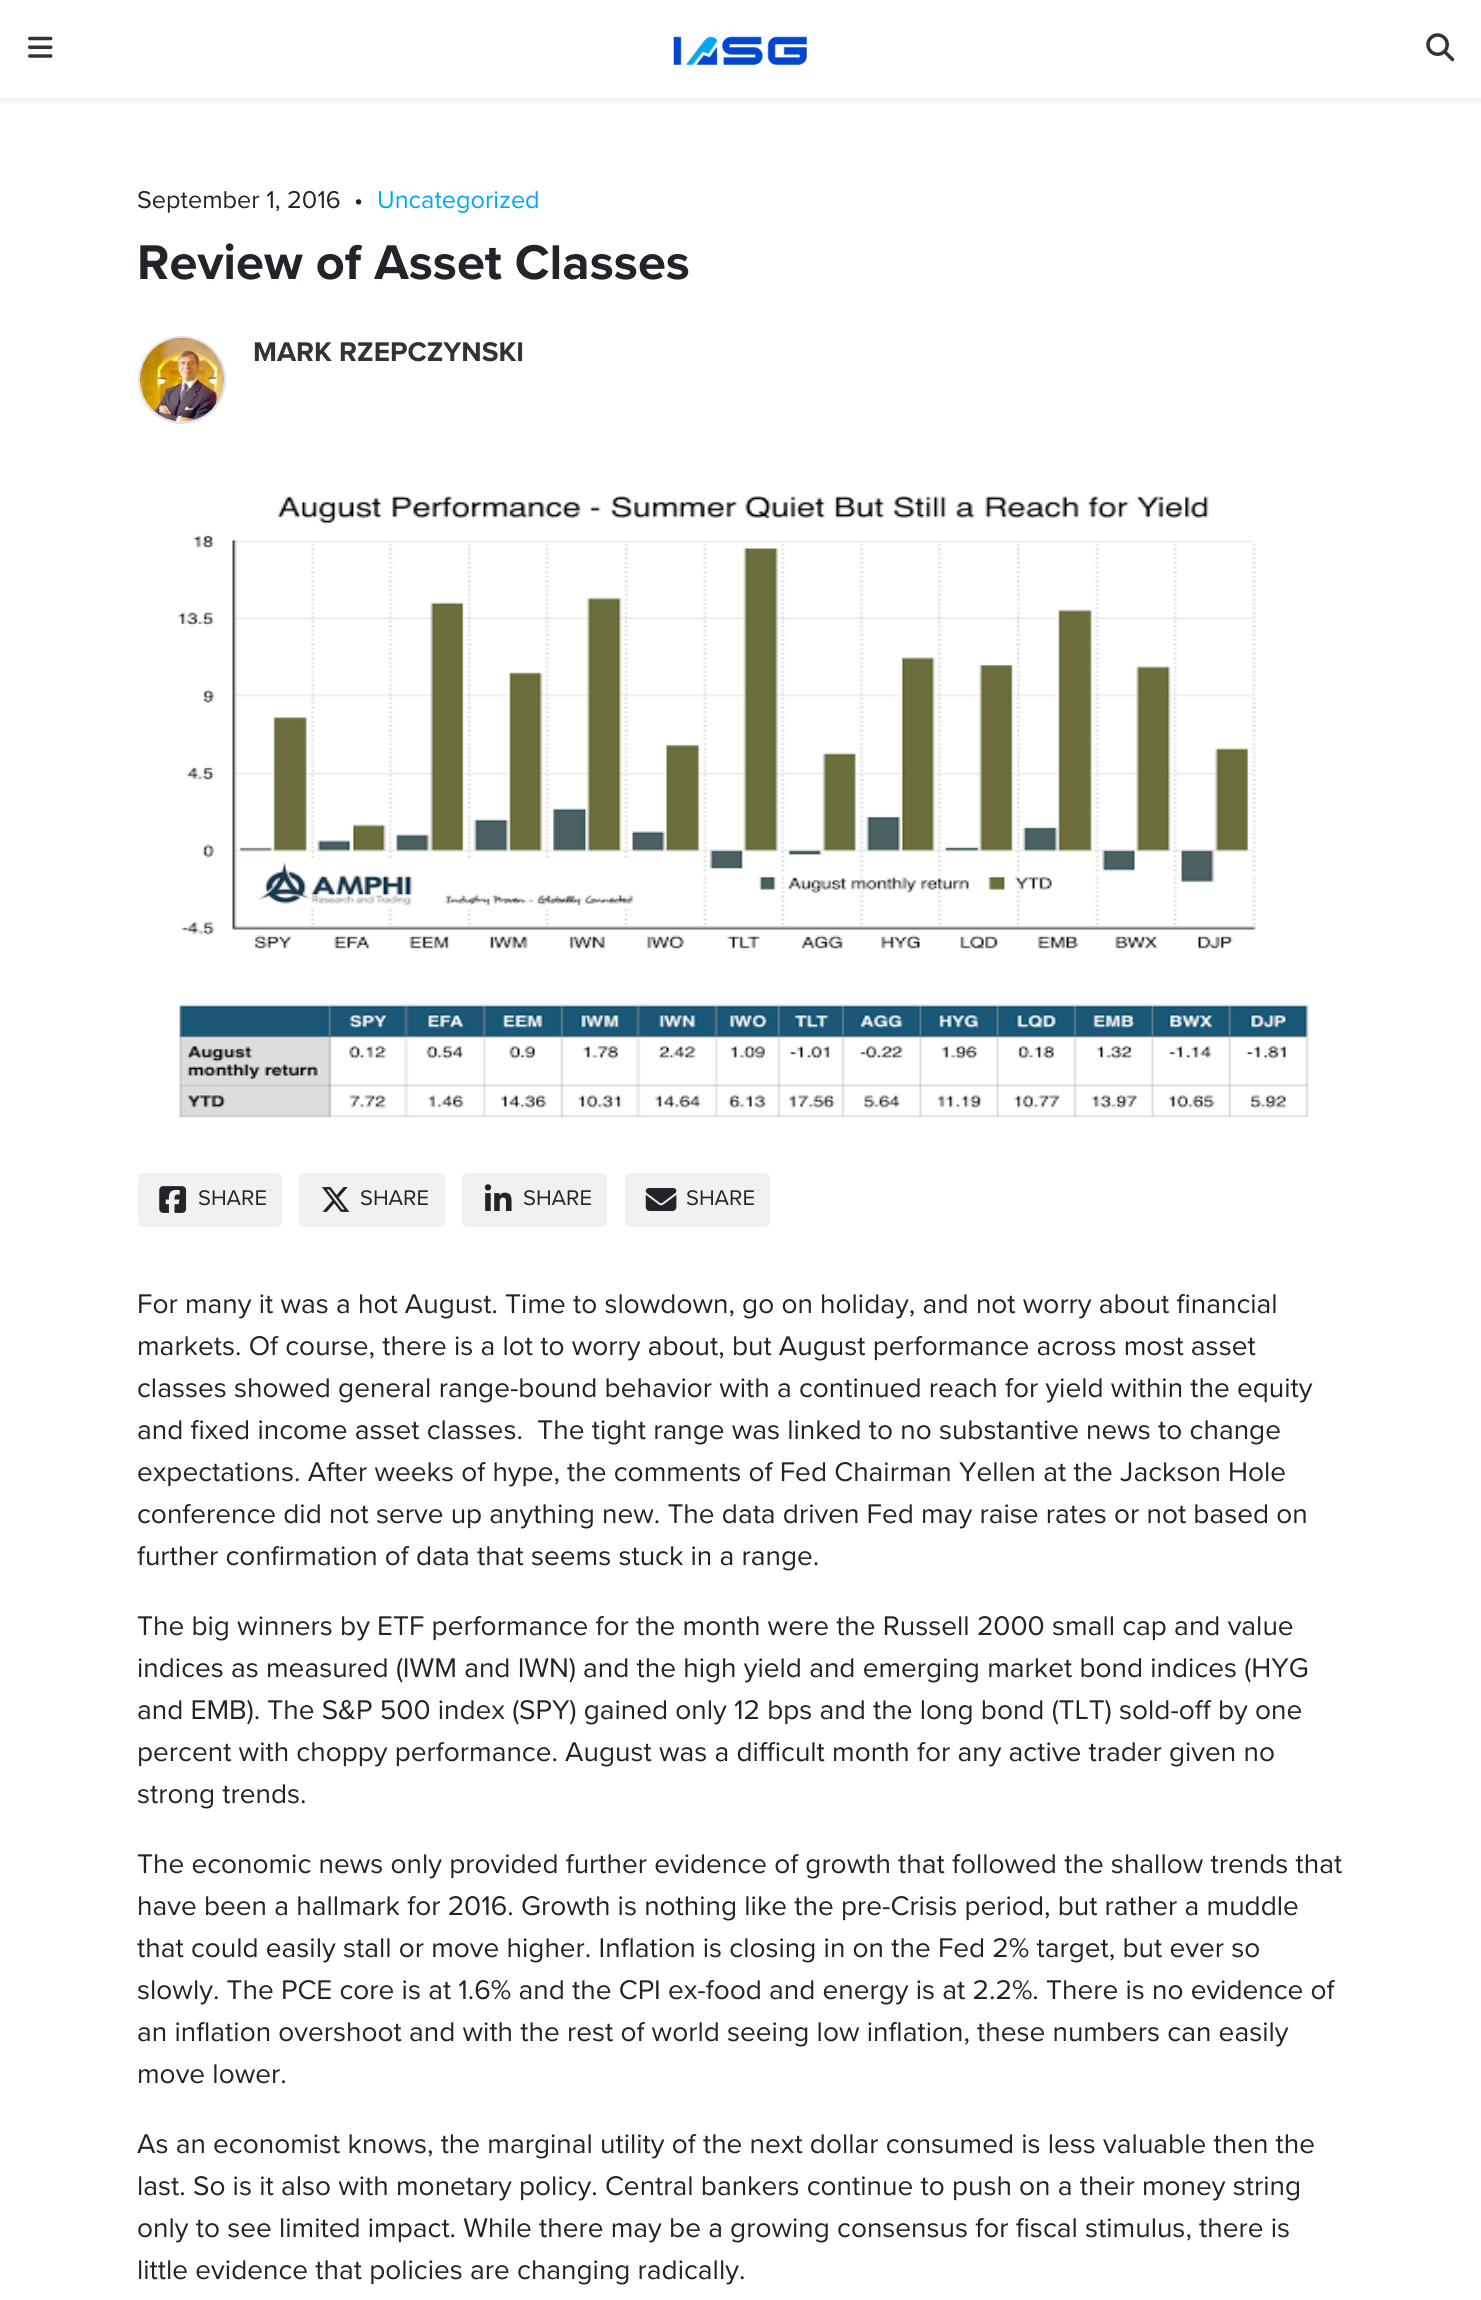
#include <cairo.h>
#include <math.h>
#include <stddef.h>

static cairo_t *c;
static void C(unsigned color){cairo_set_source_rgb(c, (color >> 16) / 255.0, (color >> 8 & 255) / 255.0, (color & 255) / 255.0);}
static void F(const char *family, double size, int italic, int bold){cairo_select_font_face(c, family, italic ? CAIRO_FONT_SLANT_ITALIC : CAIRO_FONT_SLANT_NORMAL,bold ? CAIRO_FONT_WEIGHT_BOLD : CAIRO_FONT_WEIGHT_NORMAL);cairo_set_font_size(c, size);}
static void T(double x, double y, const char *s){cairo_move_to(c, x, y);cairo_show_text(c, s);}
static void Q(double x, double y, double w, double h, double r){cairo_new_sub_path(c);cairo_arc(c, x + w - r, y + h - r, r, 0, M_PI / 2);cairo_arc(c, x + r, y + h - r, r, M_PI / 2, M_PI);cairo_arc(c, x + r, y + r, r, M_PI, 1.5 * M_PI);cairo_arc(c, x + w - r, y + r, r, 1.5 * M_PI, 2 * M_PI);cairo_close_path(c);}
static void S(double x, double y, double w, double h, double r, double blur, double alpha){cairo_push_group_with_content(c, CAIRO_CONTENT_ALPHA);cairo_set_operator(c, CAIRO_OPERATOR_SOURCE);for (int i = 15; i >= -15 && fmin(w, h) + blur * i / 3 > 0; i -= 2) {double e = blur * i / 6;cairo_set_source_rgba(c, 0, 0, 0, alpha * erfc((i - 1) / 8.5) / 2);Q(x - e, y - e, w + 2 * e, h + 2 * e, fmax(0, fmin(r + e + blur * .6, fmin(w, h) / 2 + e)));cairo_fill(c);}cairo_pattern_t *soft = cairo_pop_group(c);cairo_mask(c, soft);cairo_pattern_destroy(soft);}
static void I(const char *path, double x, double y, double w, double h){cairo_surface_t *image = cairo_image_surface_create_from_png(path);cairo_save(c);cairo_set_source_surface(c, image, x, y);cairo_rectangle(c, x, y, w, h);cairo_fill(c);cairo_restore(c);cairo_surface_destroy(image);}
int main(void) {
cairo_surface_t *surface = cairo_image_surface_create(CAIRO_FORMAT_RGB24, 1481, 2300);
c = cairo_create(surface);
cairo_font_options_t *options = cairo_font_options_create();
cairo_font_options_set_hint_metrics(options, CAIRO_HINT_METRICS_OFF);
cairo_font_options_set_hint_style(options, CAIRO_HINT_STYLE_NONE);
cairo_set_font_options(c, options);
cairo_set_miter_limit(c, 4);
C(0xffffff);
cairo_paint(c);
cairo_save(c);
cairo_rectangle(c,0,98,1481,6);
cairo_clip(c);
C(0x000000);
S(0,4,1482,98,0,3.5,.07);
cairo_restore(c);
I("1.png",28,36,25,22);
I("2.png",673,36,134,30);
I("3.png",1426,33,29,29);
F("Proxima Nova",25.25,0,0);
C(0x212529);
T(137,208,"September 1, 2016");
T(354,208,"•");
C(0x00a8f2);
T(377,208,"Uncategorized");
F("Proxima Nova",50.5,0,1);
C(0x212529);
T(137,279,"Review of Asset Classes");
cairo_new_path(c);
cairo_arc(c,182,380,43,0,2 * M_PI);
C(0xdee2e6);
cairo_stroke(c);
I("4.png",140,337,84,85);
F("Proxima Nova",28,0,1);
C(0x333333);
T(253,361,"MARK RZEPCZYNSKI");
I("5.png",177,496,1132,622);
C(0xf1f1f1);
Q(139,1174,142,52,4);
cairo_fill_preserve(c);
cairo_stroke(c);
I("6.png",159,1186,28,27);
F("Proxima Nova",22,0,0);
C(0x212529);
T(198,1205,"SHARE");
C(0xf1f1f1);
Q(300,1174,144,52,4);
cairo_fill_preserve(c);
cairo_stroke(c);
I("7.png",322,1187,28,25);
C(0x212529);
T(360,1205,"SHARE");
C(0xf1f1f1);
Q(463,1174,143,52,4);
cairo_fill_preserve(c);
cairo_stroke(c);
I("8.png",484,1184,28,27);
C(0x212529);
T(523,1205,"SHARE");
C(0xf1f1f1);
Q(626,1174,143,52,4);
cairo_fill_preserve(c);
cairo_stroke(c);
I("9.png",645,1188,32,23);
C(0x212529);
T(686,1205,"SHARE");
F("Proxima Nova",28,0,0);
T(137,1313,"For many it was a hot August. Time to slowdown, go on holiday, and not worry about financial");
T(137,1355,"markets. Of course, there is a lot to worry about, but August performance across most asset");
T(137,1397,"classes showed general range-bound behavior with a continued reach for yield within the equity");
T(137,1439,"and fixed income asset classes.  The tight range was linked to no substantive news to change");
T(137,1481,"expectations. After weeks of hype, the comments of Fed Chairman Yellen at the Jackson Hole");
T(137,1523,"conference did not serve up anything new. The data driven Fed may raise rates or not based on");
T(137,1565,"further confirmation of data that seems stuck in a range.");
T(137,1635,"The big winners by ETF performance for the month were the Russell 2000 small cap and value");
T(137,1677,"indices as measured (IWM and IWN) and the high yield and emerging market bond indices (HYG");
T(137,1719,"and EMB). The S&P 500 index (SPY) gained only 12 bps and the long bond (TLT) sold-off by one");
T(137,1761,"percent with choppy performance. August was a difficult month for any active trader given no");
T(137,1803,"strong trends.");
T(137,1873,"The economic news only provided further evidence of growth that followed the shallow trends that");
T(137,1915,"have been a hallmark for 2016. Growth is nothing like the pre-Crisis period, but rather a muddle");
T(137,1957,"that could easily stall or move higher. Inflation is closing in on the Fed 2% target, but ever so");
T(137,1999,"slowly. The PCE core is at 1.6% and the CPI ex-food and energy is at 2.2%. There is no evidence of");
T(137,2041,"an inflation overshoot and with the rest of world seeing low inflation, these numbers can easily");
T(137,2083,"move lower.");
T(137,2153,"As an economist knows, the marginal utility of the next dollar consumed is less valuable then the");
T(137,2195,"last. So is it also with monetary policy. Central bankers continue to push on a their money string");
T(137,2237,"only to see limited impact. While there may be a growing consensus for fiscal stimulus, there is");
T(137,2279,"little evidence that policies are changing radically.");
cairo_surface_write_to_png(surface, "o.png");
cairo_font_options_destroy(options);
cairo_destroy(c);
cairo_surface_destroy(surface);
return 0;
}
